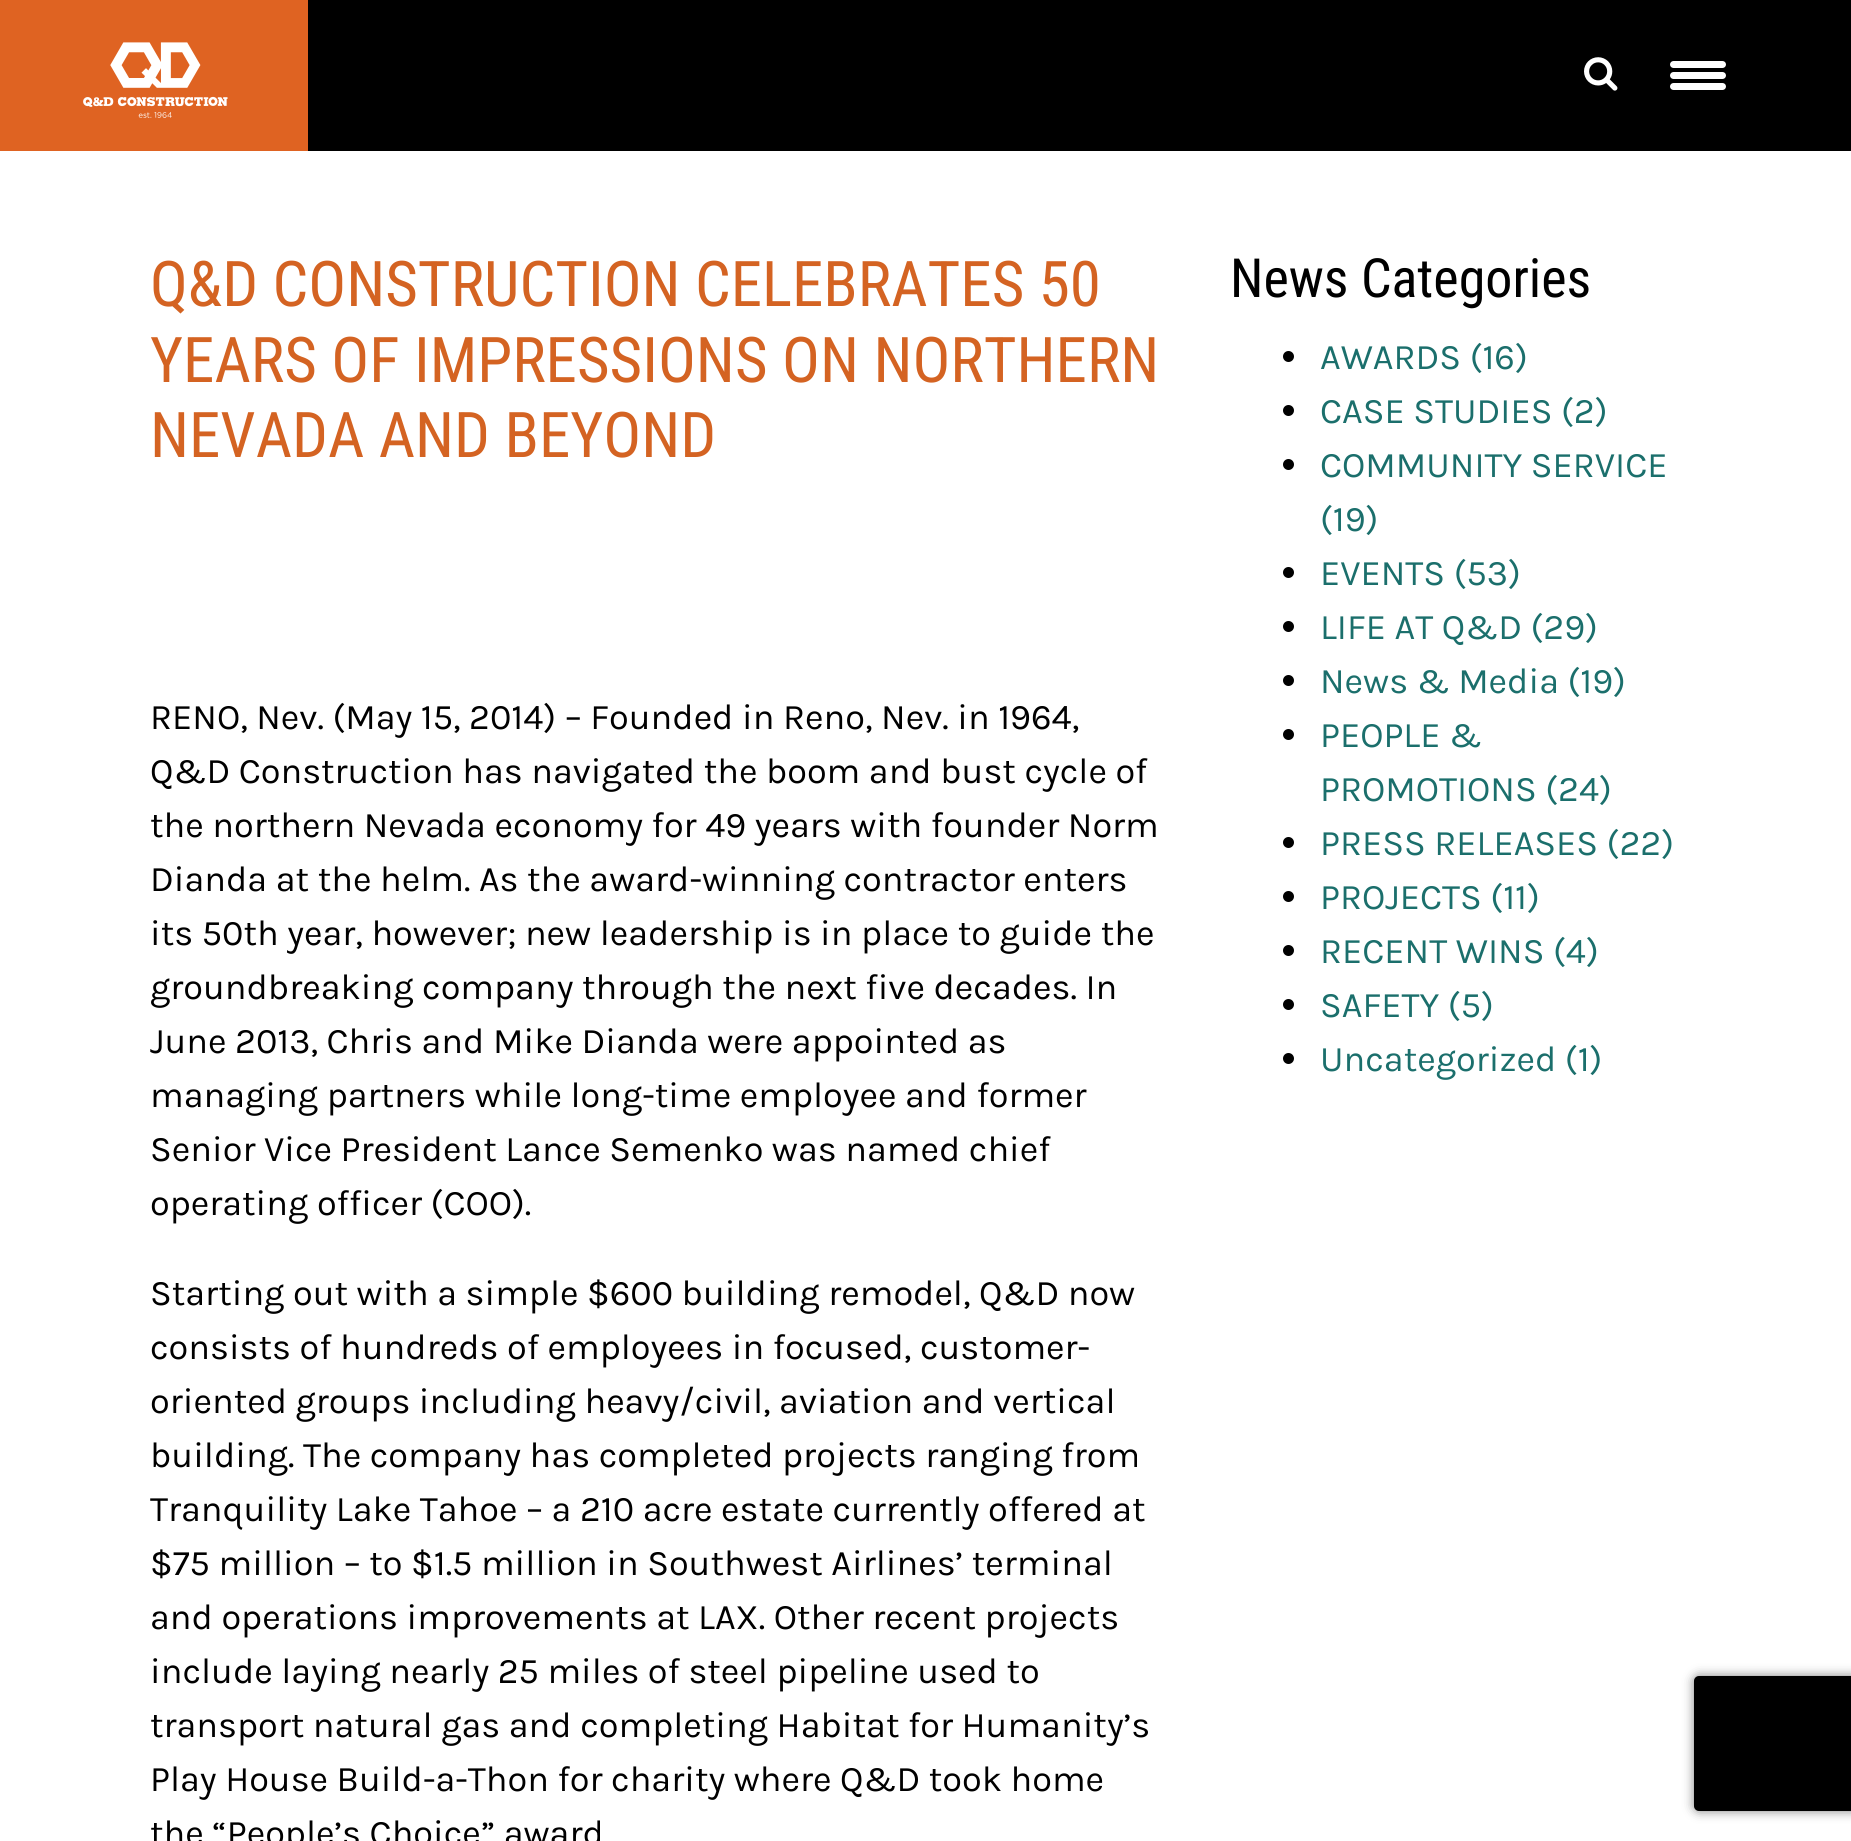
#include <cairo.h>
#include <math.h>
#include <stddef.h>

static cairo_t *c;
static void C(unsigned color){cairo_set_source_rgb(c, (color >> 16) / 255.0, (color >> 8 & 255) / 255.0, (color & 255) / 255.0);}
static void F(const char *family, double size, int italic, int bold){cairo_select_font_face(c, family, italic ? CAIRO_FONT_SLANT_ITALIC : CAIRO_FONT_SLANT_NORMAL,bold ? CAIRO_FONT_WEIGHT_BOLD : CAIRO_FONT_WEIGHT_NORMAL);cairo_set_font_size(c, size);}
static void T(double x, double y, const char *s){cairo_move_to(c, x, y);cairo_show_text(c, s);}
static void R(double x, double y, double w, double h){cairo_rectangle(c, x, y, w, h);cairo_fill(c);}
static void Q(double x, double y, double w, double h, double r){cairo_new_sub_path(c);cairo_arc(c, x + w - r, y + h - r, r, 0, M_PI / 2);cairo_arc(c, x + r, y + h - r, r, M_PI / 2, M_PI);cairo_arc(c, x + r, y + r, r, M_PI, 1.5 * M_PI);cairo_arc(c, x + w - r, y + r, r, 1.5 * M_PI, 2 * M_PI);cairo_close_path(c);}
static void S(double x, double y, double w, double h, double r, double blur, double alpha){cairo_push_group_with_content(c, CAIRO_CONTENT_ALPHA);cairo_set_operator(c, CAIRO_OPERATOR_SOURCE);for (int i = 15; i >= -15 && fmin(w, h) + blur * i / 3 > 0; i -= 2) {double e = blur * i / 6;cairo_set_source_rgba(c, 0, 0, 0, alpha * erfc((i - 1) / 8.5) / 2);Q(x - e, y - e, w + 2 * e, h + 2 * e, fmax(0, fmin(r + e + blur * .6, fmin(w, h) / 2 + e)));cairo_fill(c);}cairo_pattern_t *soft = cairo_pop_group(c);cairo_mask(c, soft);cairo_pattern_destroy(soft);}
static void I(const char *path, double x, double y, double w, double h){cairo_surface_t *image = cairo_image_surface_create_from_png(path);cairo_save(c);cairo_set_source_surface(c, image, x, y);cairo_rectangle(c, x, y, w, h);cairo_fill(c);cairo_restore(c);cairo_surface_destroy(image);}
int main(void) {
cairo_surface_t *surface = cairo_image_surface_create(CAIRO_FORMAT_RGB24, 1851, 1841);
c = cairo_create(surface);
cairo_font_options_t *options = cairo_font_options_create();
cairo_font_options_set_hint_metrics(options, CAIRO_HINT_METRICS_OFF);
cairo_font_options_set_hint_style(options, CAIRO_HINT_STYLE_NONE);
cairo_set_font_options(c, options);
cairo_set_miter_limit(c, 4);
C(0xffffff);
cairo_paint(c);
C(0x000000);
R(308,0,1543,151);
C(0xdf6322);
R(0,0,308,151);
I("1.png",83,42,145,76);
I("2.png",1584,57,34,34);
C(0xffffff);
Q(1670,72,56,7,3.5);
cairo_fill(c);
Q(1670,61,56,7,3.5);
cairo_fill(c);
Q(1670,83,56,7,3.5);
cairo_fill(c);
F("Roboto Condensed",63,0,0);
C(0xd46322);
T(150,306,"Q&D CONSTRUCTION CELEBRATES 50");
T(150,382,"YEARS OF IMPRESSIONS ON NORTHERN");
T(150,457,"NEVADA AND BEYOND");
F("Karla",36,0,0);
C(0x000000);
T(150,729,"RENO, Nev. (May 15, 2014) – Founded in Reno, Nev. in 1964,");
T(150,783,"Q&D Construction has navigated the boom and bust cycle of");
T(150,837,"the northern Nevada economy for 49 years with founder Norm");
T(150,891,"Dianda at the helm. As the award-winning contractor enters");
T(150,945,"its 50th year, however; new leadership is in place to guide the");
T(150,999,"groundbreaking company through the next five decades. In");
T(150,1053,"June 2013, Chris and Mike Dianda were appointed as");
T(150,1107,"managing partners while long-time employee and former");
T(150,1161,"Senior Vice President Lance Semenko was named chief");
T(150,1215,"operating officer (COO).");
T(150,1305,"Starting out with a simple $600 building remodel, Q&D now");
T(150,1359,"consists of hundreds of employees in focused, customer-");
T(150,1413,"oriented groups including heavy/civil, aviation and vertical");
T(150,1467,"building. The company has completed projects ranging from");
T(150,1521,"Tranquility Lake Tahoe – a 210 acre estate currently offered at");
T(150,1575,"$75 million – to $1.5 million in Southwest Airlines’ terminal");
T(150,1629,"and operations improvements at LAX. Other recent projects");
T(150,1683,"include laying nearly 25 miles of steel pipeline used to");
T(150,1737,"transport natural gas and completing Habitat for Humanity’s");
T(150,1791,"Play House Build-a-Thon for charity where Q&D took home");
T(150,1845,"the “People’s Choice” award");
F("Roboto Condensed",54,0,0);
T(1230,297,"News Categories");
cairo_new_path(c);
cairo_arc(c,1288.5,356.5,5.5,0,2 * M_PI);
cairo_fill(c);
F("Karla",36,0,0);
C(0x1b6f6c);
T(1320,369,"AWARDS (16)");
C(0x000000);
cairo_new_path(c);
cairo_arc(c,1288.5,410.5,5.5,0,2 * M_PI);
cairo_fill(c);
C(0x1b6f6c);
T(1320,423,"CASE STUDIES (2)");
C(0x000000);
cairo_new_path(c);
cairo_arc(c,1288.5,464.5,5.5,0,2 * M_PI);
cairo_fill(c);
C(0x1b6f6c);
T(1320,477,"COMMUNITY SERVICE");
T(1320,531,"(19)");
C(0x000000);
cairo_new_path(c);
cairo_arc(c,1288.5,572.5,5.5,0,2 * M_PI);
cairo_fill(c);
C(0x1b6f6c);
T(1320,585,"EVENTS (53)");
C(0x000000);
cairo_new_path(c);
cairo_arc(c,1288.5,626.5,5.5,0,2 * M_PI);
cairo_fill(c);
C(0x1b6f6c);
T(1320,639,"LIFE AT Q&D (29)");
C(0x000000);
cairo_new_path(c);
cairo_arc(c,1288.5,680.5,5.5,0,2 * M_PI);
cairo_fill(c);
C(0x1b6f6c);
T(1320,693,"News & Media (19)");
C(0x000000);
cairo_new_path(c);
cairo_arc(c,1288.5,734.5,5.5,0,2 * M_PI);
cairo_fill(c);
C(0x1b6f6c);
T(1320,747,"PEOPLE &");
T(1320,801,"PROMOTIONS (24)");
C(0x000000);
cairo_new_path(c);
cairo_arc(c,1288.5,842.5,5.5,0,2 * M_PI);
cairo_fill(c);
C(0x1b6f6c);
T(1320,855,"PRESS RELEASES (22)");
C(0x000000);
cairo_new_path(c);
cairo_arc(c,1288.5,896.5,5.5,0,2 * M_PI);
cairo_fill(c);
C(0x1b6f6c);
T(1320,909,"PROJECTS (11)");
C(0x000000);
cairo_new_path(c);
cairo_arc(c,1288.5,950.5,5.5,0,2 * M_PI);
cairo_fill(c);
C(0x1b6f6c);
T(1320,963,"RECENT WINS (4)");
C(0x000000);
cairo_new_path(c);
cairo_arc(c,1288.5,1004.5,5.5,0,2 * M_PI);
cairo_fill(c);
C(0x1b6f6c);
T(1320,1017,"SAFETY (5)");
C(0x000000);
cairo_new_path(c);
cairo_arc(c,1288.5,1058.5,5.5,0,2 * M_PI);
cairo_fill(c);
C(0x1b6f6c);
T(1320,1071,"Uncategorized (1)");
C(0x808080);
S(1694,1676,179,135,5,5.5,1);
C(0x000000);
Q(1694,1676,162,135,5);
cairo_fill(c);
cairo_surface_write_to_png(surface, "o.png");
cairo_font_options_destroy(options);
cairo_destroy(c);
cairo_surface_destroy(surface);
return 0;
}
